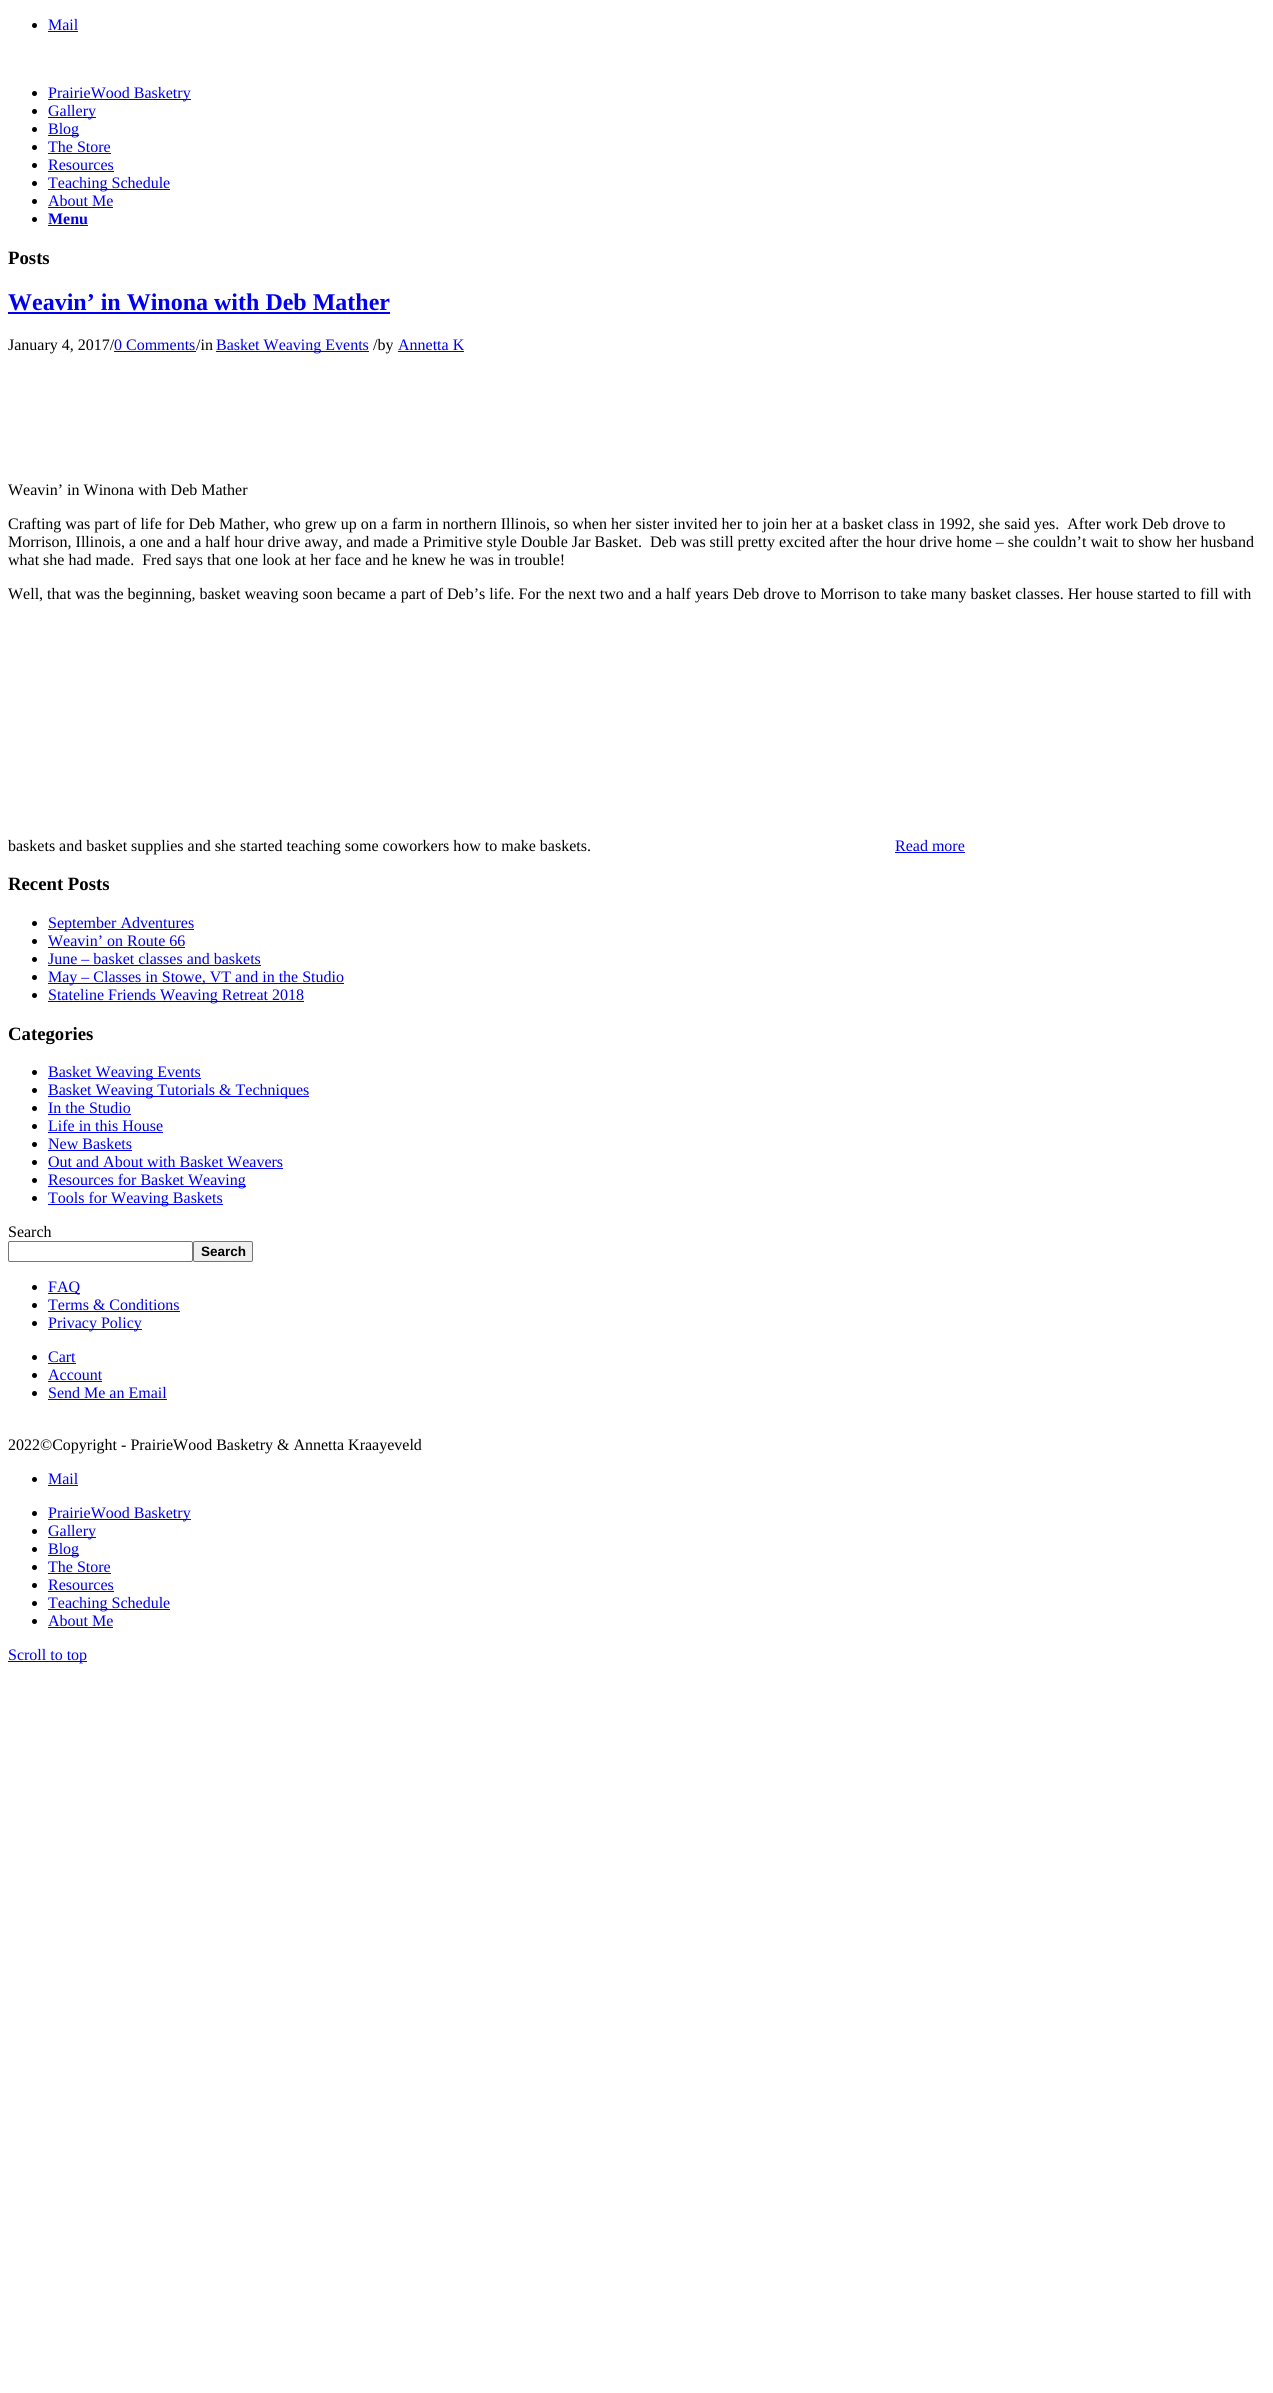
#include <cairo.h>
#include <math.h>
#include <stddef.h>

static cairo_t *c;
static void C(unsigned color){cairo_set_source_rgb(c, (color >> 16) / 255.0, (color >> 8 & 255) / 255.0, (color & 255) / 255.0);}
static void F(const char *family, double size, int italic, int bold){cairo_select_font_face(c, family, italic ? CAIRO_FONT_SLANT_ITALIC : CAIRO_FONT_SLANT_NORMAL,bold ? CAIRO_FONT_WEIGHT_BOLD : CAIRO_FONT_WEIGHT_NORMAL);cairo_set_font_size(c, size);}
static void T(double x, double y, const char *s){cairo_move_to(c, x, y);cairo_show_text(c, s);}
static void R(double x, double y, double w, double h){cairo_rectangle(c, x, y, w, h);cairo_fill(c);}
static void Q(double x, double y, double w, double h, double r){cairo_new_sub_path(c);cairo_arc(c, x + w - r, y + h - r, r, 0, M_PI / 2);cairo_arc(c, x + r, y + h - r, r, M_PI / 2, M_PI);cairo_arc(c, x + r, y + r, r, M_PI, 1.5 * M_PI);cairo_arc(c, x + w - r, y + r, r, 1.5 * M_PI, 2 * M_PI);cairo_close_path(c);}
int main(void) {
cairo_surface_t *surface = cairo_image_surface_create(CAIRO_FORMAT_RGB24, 1273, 2393);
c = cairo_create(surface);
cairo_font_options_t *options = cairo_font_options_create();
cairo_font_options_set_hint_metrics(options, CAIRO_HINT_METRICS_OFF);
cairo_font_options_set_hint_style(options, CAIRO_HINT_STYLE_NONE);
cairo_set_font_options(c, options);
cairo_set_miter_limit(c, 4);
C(0xffffff);
cairo_paint(c);
C(0x000000);
cairo_arc(c,34.5,25.5,2.5,0,2 * M_PI);
cairo_fill(c);
F("Liberation Serif",16,0,0);
C(0x0000ee);
T(48,30,"Mail");
R(48,31,30,1);
C(0x000000);
cairo_new_path(c);
cairo_arc(c,34.5,93.5,2.5,0,2 * M_PI);
cairo_fill(c);
C(0x0000ee);
R(48,99,143,1);
T(48,98,"PrairieWood Basketry");
C(0x000000);
cairo_new_path(c);
cairo_arc(c,34.5,111.5,2.5,0,2 * M_PI);
cairo_fill(c);
C(0x0000ee);
R(48,117,48,1);
T(48,116,"Gallery");
C(0x000000);
cairo_new_path(c);
cairo_arc(c,34.5,129.5,2.5,0,2 * M_PI);
cairo_fill(c);
C(0x0000ee);
R(48,135,31,1);
T(48,134,"Blog");
C(0x000000);
cairo_new_path(c);
cairo_arc(c,34.5,147.5,2.5,0,2 * M_PI);
cairo_fill(c);
C(0x0000ee);
T(48,152,"The Store");
R(48,153,63,1);
C(0x000000);
cairo_new_path(c);
cairo_arc(c,34.5,165.5,2.5,0,2 * M_PI);
cairo_fill(c);
C(0x0000ee);
T(48,170,"Resources");
R(48,171,66,1);
C(0x000000);
cairo_new_path(c);
cairo_arc(c,34.5,183.5,2.5,0,2 * M_PI);
cairo_fill(c);
C(0x0000ee);
R(48,189,122,1);
T(48,188,"Teaching Schedule");
C(0x000000);
cairo_new_path(c);
cairo_arc(c,34.5,201.5,2.5,0,2 * M_PI);
cairo_fill(c);
C(0x0000ee);
T(48,206,"About Me");
R(48,207,65,1);
C(0x000000);
cairo_new_path(c);
cairo_arc(c,34.5,219.5,2.5,0,2 * M_PI);
cairo_fill(c);
F("Liberation Serif",16,0,1);
C(0x0000ee);
T(48,224,"Menu");
R(48,225,40,1);
F("Liberation Serif",18.75,0,1);
C(0x000000);
T(8,264,"Posts");
F("Liberation Serif",24,0,1);
C(0x0000ee);
T(8,310,"Weavin’ in Winona with Deb Mather");
R(8,312,382,2);
F("Liberation Serif",16,0,0);
C(0x000000);
T(8,350,"January 4, 2017/");
C(0x0000ee);
R(114,351,82,1);
T(114,350,"0 Comments");
C(0x000000);
T(196,350,"/in");
C(0x0000ee);
R(216,351,153,1);
T(216,350,"Basket Weaving Events");
C(0x000000);
T(373,350,"/by");
C(0x0000ee);
T(398,350,"Annetta K");
R(398,351,66,1);
C(0x000000);
T(8,495,"Weavin’ in Winona with Deb Mather");
T(8,529,"Crafting was part of life for Deb Mather, who grew up on a farm in northern Illinois, so when her sister invited her to join her at a basket class in 1992, she said yes.  After work Deb drove to");
T(8,547,"Morrison, Illinois, a one and a half hour drive away, and made a Primitive style Double Jar Basket.  Deb was still pretty excited after the hour drive home – she couldn’t wait to show her husband");
T(8,565,"what she had made.  Fred says that one look at her face and he knew he was in trouble!");
T(8,599,"Well, that was the beginning, basket weaving soon became a part of Deb’s life. For the next two and a half years Deb drove to Morrison to take many basket classes. Her house started to fill with");
T(8,851,"baskets and basket supplies and she started teaching some coworkers how to make baskets.");
C(0x0000ee);
T(895,851,"Read more");
R(895,852,70,1);
F("Liberation Serif",18.75,0,1);
C(0x000000);
T(8,890,"Recent Posts");
cairo_new_path(c);
cairo_arc(c,34.5,923.5,2.5,0,2 * M_PI);
cairo_fill(c);
C(0x0000ee);
R(48,929,146,1);
F("Liberation Serif",16,0,0);
T(48,928,"September Adventures");
C(0x000000);
cairo_new_path(c);
cairo_arc(c,34.5,941.5,2.5,0,2 * M_PI);
cairo_fill(c);
C(0x0000ee);
T(48,946,"Weavin’ on Route 66");
R(48,947,137,1);
C(0x000000);
cairo_new_path(c);
cairo_arc(c,34.5,959.5,2.5,0,2 * M_PI);
cairo_fill(c);
C(0x0000ee);
T(48,964,"June – basket classes and baskets");
R(48,965,213,1);
C(0x000000);
cairo_new_path(c);
cairo_arc(c,34.5,977.5,2.5,0,2 * M_PI);
cairo_fill(c);
C(0x0000ee);
R(48,983,296,1);
T(48,982,"May – Classes in Stowe, VT and in the Studio");
C(0x000000);
cairo_new_path(c);
cairo_arc(c,34.5,995.5,2.5,0,2 * M_PI);
cairo_fill(c);
C(0x0000ee);
R(48,1001,256,1);
T(48,1000,"Stateline Friends Weaving Retreat 2018");
F("Liberation Serif",18.75,0,1);
C(0x000000);
T(8,1040,"Categories");
cairo_new_path(c);
cairo_arc(c,34.5,1072.5,2.5,0,2 * M_PI);
cairo_fill(c);
C(0x0000ee);
R(48,1078,153,1);
F("Liberation Serif",16,0,0);
T(48,1077,"Basket Weaving Events");
C(0x000000);
cairo_new_path(c);
cairo_arc(c,34.5,1090.5,2.5,0,2 * M_PI);
cairo_fill(c);
C(0x0000ee);
R(48,1096,261,1);
T(48,1095,"Basket Weaving Tutorials & Techniques");
C(0x000000);
cairo_new_path(c);
cairo_arc(c,34.5,1108.5,2.5,0,2 * M_PI);
cairo_fill(c);
C(0x0000ee);
T(48,1113,"In the Studio");
R(48,1114,83,1);
C(0x000000);
cairo_new_path(c);
cairo_arc(c,34.5,1126.5,2.5,0,2 * M_PI);
cairo_fill(c);
C(0x0000ee);
T(48,1131,"Life in this House");
R(48,1132,115,1);
C(0x000000);
cairo_new_path(c);
cairo_arc(c,34.5,1144.5,2.5,0,2 * M_PI);
cairo_fill(c);
C(0x0000ee);
T(48,1149,"New Baskets");
R(48,1150,84,1);
C(0x000000);
cairo_new_path(c);
cairo_arc(c,34.5,1162.5,2.5,0,2 * M_PI);
cairo_fill(c);
C(0x0000ee);
T(48,1167,"Out and About with Basket Weavers");
R(48,1168,235,1);
C(0x000000);
cairo_new_path(c);
cairo_arc(c,34.5,1180.5,2.5,0,2 * M_PI);
cairo_fill(c);
C(0x0000ee);
R(48,1186,198,1);
T(48,1185,"Resources for Basket Weaving");
C(0x000000);
cairo_new_path(c);
cairo_arc(c,34.5,1198.5,2.5,0,2 * M_PI);
cairo_fill(c);
C(0x0000ee);
R(48,1204,175,1);
T(48,1203,"Tools for Weaving Baskets");
C(0x000000);
T(8,1237,"Search");
Q(8.5,1241.5,184,20,1.5);
C(0x767676);
cairo_set_line_width(c,1);
cairo_stroke(c);
C(0xefefef);
Q(193.5,1241.5,59,20,1.5);
cairo_fill_preserve(c);
C(0x767676);
cairo_stroke(c);
F("Liberation Sans",13.5,0,1);
C(0x000000);
T(201,1256,"Search");
cairo_new_path(c);
cairo_arc(c,34.5,1287.5,2.5,0,2 * M_PI);
cairo_fill(c);
C(0x0000ee);
R(48,1293,32,1);
F("Liberation Serif",16,0,0);
T(48,1292,"FAQ");
C(0x000000);
cairo_new_path(c);
cairo_arc(c,34.5,1305.5,2.5,0,2 * M_PI);
cairo_fill(c);
C(0x0000ee);
T(48,1310,"Terms & Conditions");
R(48,1311,132,1);
C(0x000000);
cairo_new_path(c);
cairo_arc(c,34.5,1323.5,2.5,0,2 * M_PI);
cairo_fill(c);
C(0x0000ee);
R(48,1329,94,1);
T(48,1328,"Privacy Policy");
C(0x000000);
cairo_new_path(c);
cairo_arc(c,34.5,1357.5,2.5,0,2 * M_PI);
cairo_fill(c);
C(0x0000ee);
T(48,1362,"Cart");
R(48,1363,28,1);
C(0x000000);
cairo_new_path(c);
cairo_arc(c,34.5,1375.5,2.5,0,2 * M_PI);
cairo_fill(c);
C(0x0000ee);
T(48,1380,"Account");
R(48,1381,54,1);
C(0x000000);
cairo_new_path(c);
cairo_arc(c,34.5,1393.5,2.5,0,2 * M_PI);
cairo_fill(c);
C(0x0000ee);
T(48,1398,"Send Me an Email");
R(48,1399,119,1);
C(0x000000);
T(8,1450,"2022©Copyright - PrairieWood Basketry & Annetta Kraayeveld");
cairo_new_path(c);
cairo_arc(c,34.5,1479.5,2.5,0,2 * M_PI);
cairo_fill(c);
C(0x0000ee);
T(48,1484,"Mail");
R(48,1485,30,1);
C(0x000000);
cairo_new_path(c);
cairo_arc(c,34.5,1513.5,2.5,0,2 * M_PI);
cairo_fill(c);
C(0x0000ee);
R(48,1519,143,1);
T(48,1518,"PrairieWood Basketry");
C(0x000000);
cairo_new_path(c);
cairo_arc(c,34.5,1531.5,2.5,0,2 * M_PI);
cairo_fill(c);
C(0x0000ee);
R(48,1537,48,1);
T(48,1536,"Gallery");
C(0x000000);
cairo_new_path(c);
cairo_arc(c,34.5,1549.5,2.5,0,2 * M_PI);
cairo_fill(c);
C(0x0000ee);
R(48,1555,31,1);
T(48,1554,"Blog");
C(0x000000);
cairo_new_path(c);
cairo_arc(c,34.5,1567.5,2.5,0,2 * M_PI);
cairo_fill(c);
C(0x0000ee);
T(48,1572,"The Store");
R(48,1573,63,1);
C(0x000000);
cairo_new_path(c);
cairo_arc(c,34.5,1585.5,2.5,0,2 * M_PI);
cairo_fill(c);
C(0x0000ee);
T(48,1590,"Resources");
R(48,1591,66,1);
C(0x000000);
cairo_new_path(c);
cairo_arc(c,34.5,1603.5,2.5,0,2 * M_PI);
cairo_fill(c);
C(0x0000ee);
R(48,1609,122,1);
T(48,1608,"Teaching Schedule");
C(0x000000);
cairo_new_path(c);
cairo_arc(c,34.5,1621.5,2.5,0,2 * M_PI);
cairo_fill(c);
C(0x0000ee);
T(48,1626,"About Me");
R(48,1627,65,1);
R(8,1661,79,1);
T(8,1660,"Scroll to top");
cairo_surface_write_to_png(surface, "o.png");
cairo_font_options_destroy(options);
cairo_destroy(c);
cairo_surface_destroy(surface);
return 0;
}
